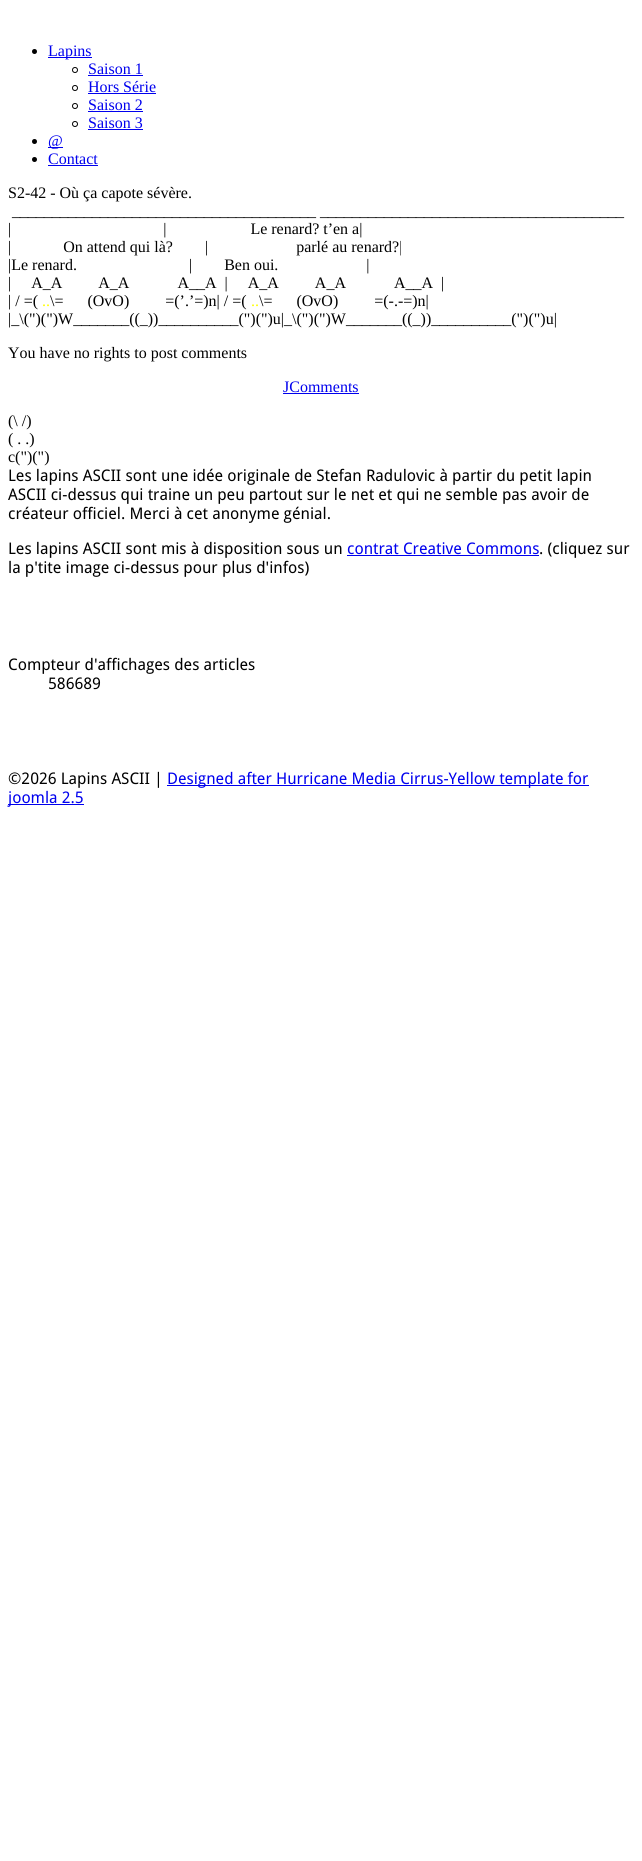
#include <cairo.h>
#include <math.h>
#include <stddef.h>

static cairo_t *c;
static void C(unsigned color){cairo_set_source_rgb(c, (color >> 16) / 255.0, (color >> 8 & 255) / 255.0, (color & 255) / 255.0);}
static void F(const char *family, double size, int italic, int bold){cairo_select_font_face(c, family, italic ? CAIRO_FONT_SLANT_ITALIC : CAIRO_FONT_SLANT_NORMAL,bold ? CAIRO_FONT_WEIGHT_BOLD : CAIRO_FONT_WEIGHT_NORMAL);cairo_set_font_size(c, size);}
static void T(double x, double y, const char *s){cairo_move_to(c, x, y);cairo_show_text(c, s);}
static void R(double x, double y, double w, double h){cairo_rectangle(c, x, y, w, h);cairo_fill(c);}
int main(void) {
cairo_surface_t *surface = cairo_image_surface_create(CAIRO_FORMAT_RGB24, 642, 1861);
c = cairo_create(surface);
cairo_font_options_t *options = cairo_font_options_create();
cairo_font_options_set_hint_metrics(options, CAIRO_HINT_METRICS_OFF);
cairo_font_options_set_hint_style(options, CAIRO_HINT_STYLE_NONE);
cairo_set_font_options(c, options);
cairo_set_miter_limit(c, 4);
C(0xffffff);
cairo_paint(c);
C(0x000000);
cairo_arc(c,34.5,51.5,2.5,0,2 * M_PI);
cairo_fill(c);
C(0x0000ee);
R(48,57,44,1);
F("Liberation Serif",16,0,0);
T(48,56,"Lapins");
cairo_new_path(c);
cairo_arc(c,75,70,2.5,0,2 * M_PI);
C(0x000000);
cairo_set_line_width(c,1);
cairo_stroke(c);
C(0x0000ee);
T(88,74,"Saison 1");
R(88,75,55,1);
cairo_new_path(c);
cairo_arc(c,75,88,2.5,0,2 * M_PI);
C(0x000000);
cairo_stroke(c);
C(0x0000ee);
T(88,92,"Hors Série");
R(88,93,68,1);
cairo_new_path(c);
cairo_arc(c,75,106,2.5,0,2 * M_PI);
C(0x000000);
cairo_stroke(c);
C(0x0000ee);
T(88,110,"Saison 2");
R(88,111,55,1);
cairo_new_path(c);
cairo_arc(c,75,124,2.5,0,2 * M_PI);
C(0x000000);
cairo_stroke(c);
C(0x0000ee);
T(88,128,"Saison 3");
R(88,129,55,1);
C(0x000000);
cairo_new_path(c);
cairo_arc(c,34.5,141.5,2.5,0,2 * M_PI);
cairo_fill(c);
C(0x0000ee);
R(48,147,15,1);
T(48,146,"@");
C(0x000000);
cairo_new_path(c);
cairo_arc(c,34.5,159.5,2.5,0,2 * M_PI);
cairo_fill(c);
C(0x0000ee);
T(48,164,"Contact");
R(48,165,50,1);
C(0x000000);
T(8,198,"S2-42 - Où ça capote sévère.");
T(12,216,"______________________________________ ______________________________________");
T(8,234,"|                                      |                     Le renard? t’en a|");
T(8,252,"|             On attend qui là?        |                      parlé au renard?|");
T(8,270,"|Le renard.                            |        Ben oui.                      |");
T(8,288,"|     A_A         A_A            A__A  |     A_A         A_A            A__A  |");
T(8,306,"| / =(");
C(0xffff00);
T(42,306,"..");
C(0x000000);
T(50,306,"\\=      (OvO)         =(’.’=)n| / =(");
C(0xffff00);
T(251,306,"..");
C(0x000000);
T(259,306,"\\=      (OvO)         =(-.-=)n|");
T(8,324,"|_\\(\")(\")W_______((_))__________(\")(\")u|_\\(\")(\")W_______((_))__________(\")(\")u|");
T(8,358,"You have no rights to post comments");
C(0x0000ee);
T(283,392,"JComments");
R(283,393,76,1);
C(0x000000);
T(8,426,"(\\ /)");
T(8,444,"( . .)");
T(8,462,"c(\")(\")");
F("Droid Sans",16,0,0);
T(8,481,"Les lapins ASCII sont une idée originale de Stefan Radulovic à partir du petit lapin");
T(8,500,"ASCII ci-dessus qui traine un peu partout sur le net et qui ne semble pas avoir de");
T(8,519,"créateur officiel. Merci à cet anonyme génial.");
T(8,554,"Les lapins ASCII sont mis à disposition sous un");
C(0x0000ee);
T(347,554,"contrat Creative Commons");
C(0x000000);
T(539,554,". (cliquez sur");
C(0x0000ee);
R(347,555,192,1);
C(0x000000);
T(8,573,"la p'tite image ci-dessus pour plus d'infos)");
T(8,670,"Compteur d'affichages des articles");
T(48,689,"586689");
T(8,784,"©2026 Lapins ASCII |");
C(0x0000ee);
R(167,785,422,1);
T(167,784,"Designed after Hurricane Media Cirrus-Yellow template for");
R(8,804,76,1);
T(8,803,"joomla 2.5");
cairo_surface_write_to_png(surface, "o.png");
cairo_font_options_destroy(options);
cairo_destroy(c);
cairo_surface_destroy(surface);
return 0;
}
